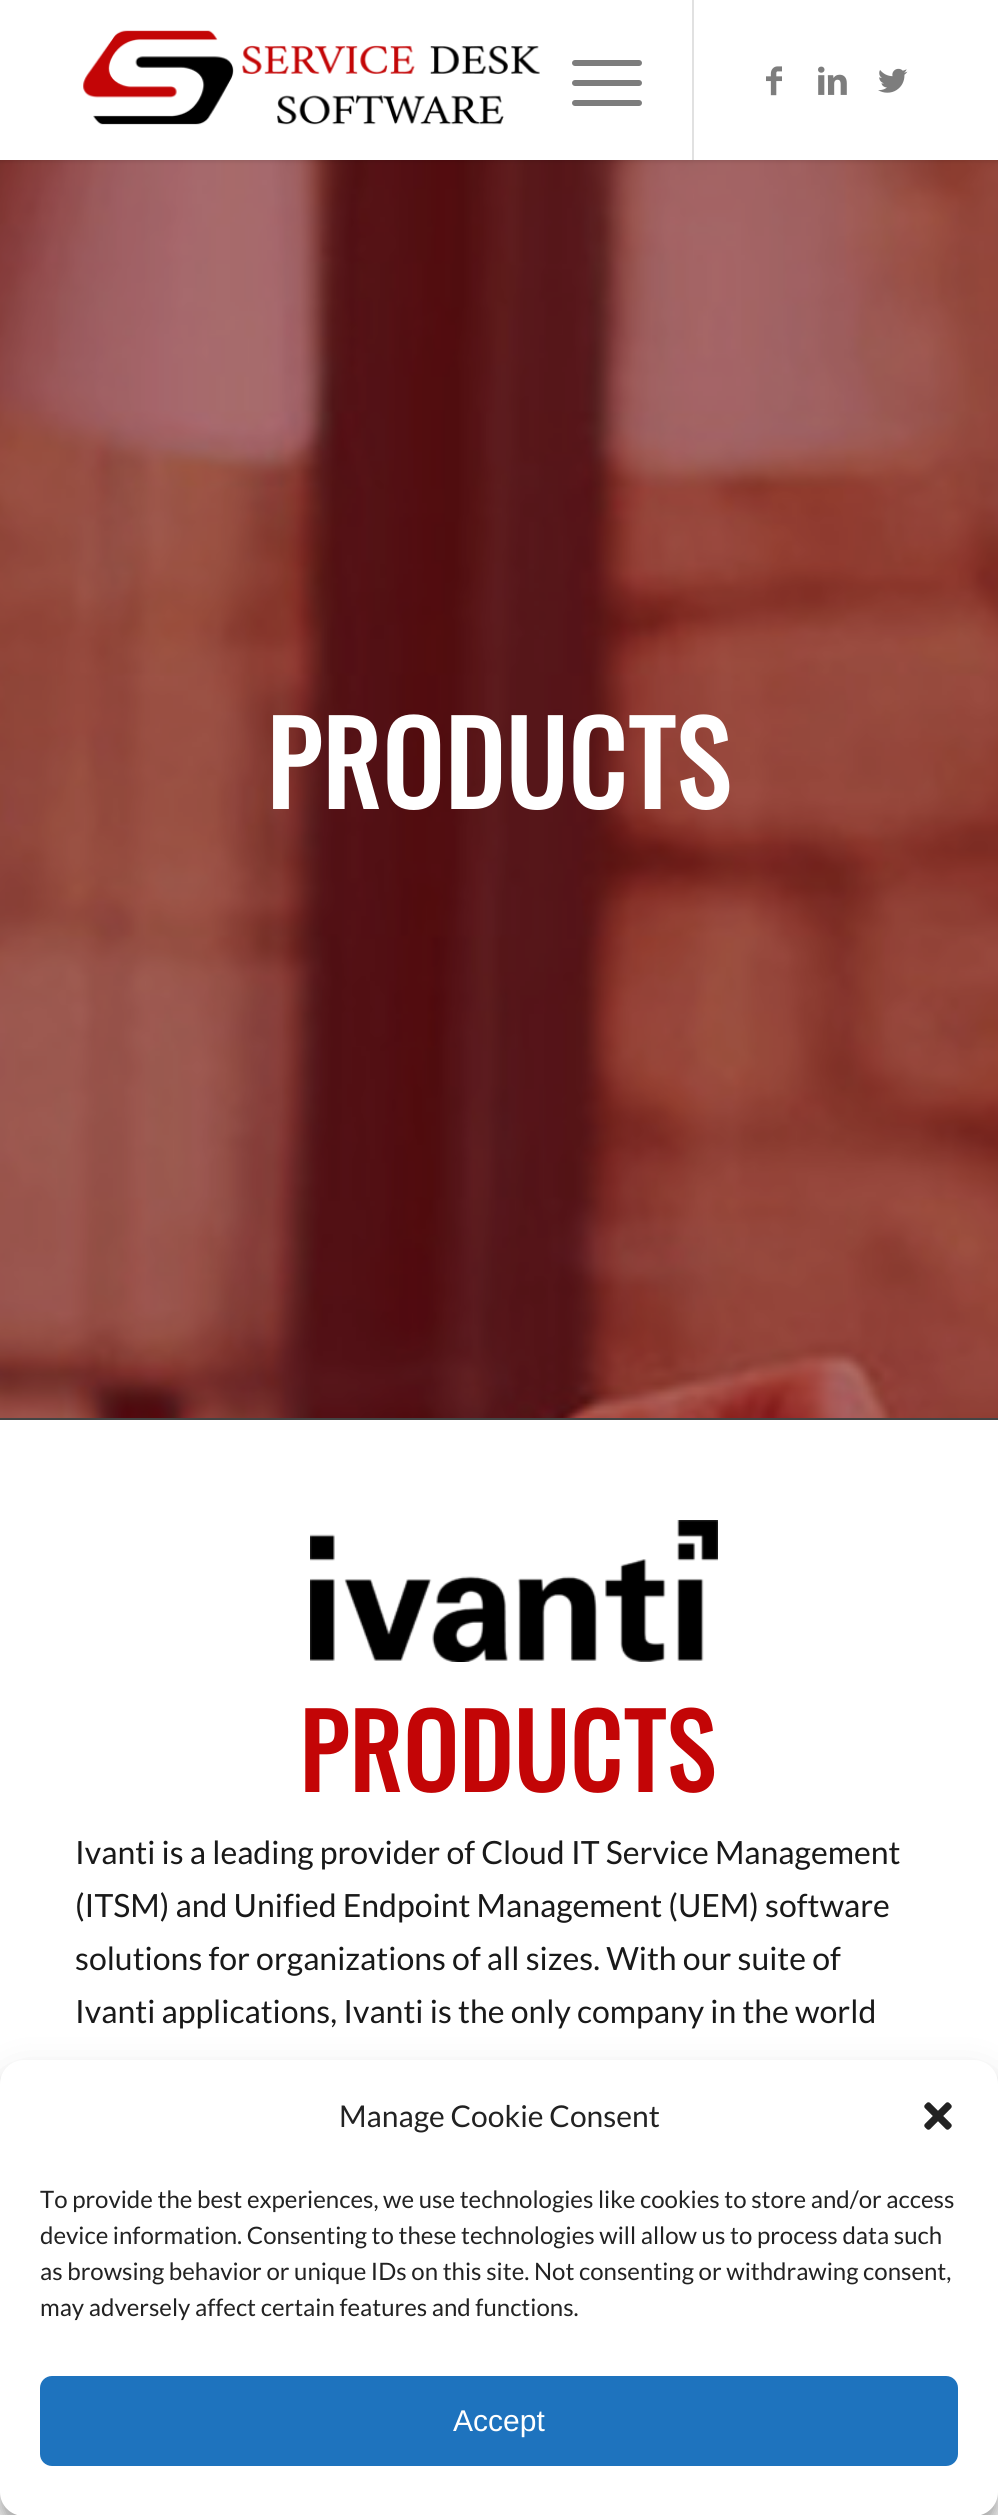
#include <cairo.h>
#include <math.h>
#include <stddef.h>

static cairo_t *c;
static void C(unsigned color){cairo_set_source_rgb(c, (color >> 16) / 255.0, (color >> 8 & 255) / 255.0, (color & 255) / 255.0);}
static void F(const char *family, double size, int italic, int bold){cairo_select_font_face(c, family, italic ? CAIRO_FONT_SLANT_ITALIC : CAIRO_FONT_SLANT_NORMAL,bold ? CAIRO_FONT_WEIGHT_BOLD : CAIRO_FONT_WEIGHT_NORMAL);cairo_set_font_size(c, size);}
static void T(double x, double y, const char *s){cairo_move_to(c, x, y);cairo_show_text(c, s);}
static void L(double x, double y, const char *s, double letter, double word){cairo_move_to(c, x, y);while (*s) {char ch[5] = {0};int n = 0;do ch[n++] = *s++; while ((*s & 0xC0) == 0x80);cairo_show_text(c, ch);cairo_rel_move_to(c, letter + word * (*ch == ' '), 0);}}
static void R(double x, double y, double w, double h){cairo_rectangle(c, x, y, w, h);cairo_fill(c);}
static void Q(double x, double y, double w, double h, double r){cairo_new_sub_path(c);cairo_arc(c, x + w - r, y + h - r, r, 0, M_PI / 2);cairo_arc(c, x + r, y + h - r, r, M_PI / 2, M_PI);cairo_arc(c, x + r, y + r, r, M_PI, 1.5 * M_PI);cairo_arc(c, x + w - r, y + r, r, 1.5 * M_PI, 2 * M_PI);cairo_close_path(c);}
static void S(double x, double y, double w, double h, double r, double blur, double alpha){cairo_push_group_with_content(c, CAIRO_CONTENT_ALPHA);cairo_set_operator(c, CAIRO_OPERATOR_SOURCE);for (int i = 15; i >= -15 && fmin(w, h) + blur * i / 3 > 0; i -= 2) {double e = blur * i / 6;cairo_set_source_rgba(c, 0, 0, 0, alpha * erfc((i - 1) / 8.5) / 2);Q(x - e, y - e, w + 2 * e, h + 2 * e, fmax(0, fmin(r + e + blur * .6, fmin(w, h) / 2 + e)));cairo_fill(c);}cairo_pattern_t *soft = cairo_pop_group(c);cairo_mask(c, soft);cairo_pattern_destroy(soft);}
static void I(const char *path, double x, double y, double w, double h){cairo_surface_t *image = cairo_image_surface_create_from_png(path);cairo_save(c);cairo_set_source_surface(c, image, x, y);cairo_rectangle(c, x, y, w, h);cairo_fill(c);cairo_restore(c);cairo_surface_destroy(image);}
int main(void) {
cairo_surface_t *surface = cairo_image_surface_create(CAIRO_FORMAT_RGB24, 998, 2515);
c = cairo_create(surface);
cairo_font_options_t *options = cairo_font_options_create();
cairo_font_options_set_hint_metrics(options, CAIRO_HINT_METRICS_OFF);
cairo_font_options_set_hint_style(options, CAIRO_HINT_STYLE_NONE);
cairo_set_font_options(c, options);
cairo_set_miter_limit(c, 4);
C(0xffffff);
cairo_paint(c);
I("5.png",0,160,998,1258);
C(0x000000);
S(-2,-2,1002,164,0,2,.1);
C(0xffffff);
R(0,0,998,160);
I("1.png",83,30,457,95);
C(0xe1e1e1);
R(692,0,2,160);
C(0x7d7d7d);
Q(572,80,70,6,3);
cairo_fill(c);
Q(572,60,70,6,3);
cairo_fill(c);
Q(572,100,70,6,3);
cairo_fill(c);
I("2.png",766,66,16,30);
I("3.png",818,66,29,29);
I("4.png",878,68,30,25);
F("Oswald",112,0,1);
C(0xffffff);
L(266,809,"PRODUCTS",2,0);
C(0x444444);
R(0,1418,998,2);
I("6.png",310,1520,408,142);
F("Oswald",100,0,1);
C(0xc30506);
L(299,1792,"PRODUCTS",2,0);
F("Lato",32,0,0);
C(0x191919);
T(75,1864,"Ivanti is a leading provider of Cloud IT Service Management");
T(75,1917,"(ITSM) and Unified Endpoint Management (UEM) software");
T(75,1970,"solutions for organizations of all sizes. With our suite of");
T(75,2023,"Ivanti applications, Ivanti is the only company in the world");
C(0x000000);
S(0,2072,998,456,24,6,.23);
S(0,2080,998,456,24,20,.19);
C(0xffffff);
Q(0,2060,998,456,24);
cairo_fill(c);
F("Lato",30,0,0);
C(0x222222);
T(339,2127,"Manage Cookie Consent");
I("7.png",924,2102,28,28);
F("Lato",24,0,0);
T(40,2208,"To provide the best experiences, we use technologies like cookies to store and/or access");
T(40,2244,"device information. Consenting to these technologies will allow us to process data such");
T(40,2280,"as browsing behavior or unique IDs on this site. Not consenting or withdrawing consent,");
T(40,2316,"may adversely affect certain features and functions.");
C(0x1e73be);
Q(41,2377,916,88,11);
cairo_fill_preserve(c);
cairo_stroke(c);
F("Liberation Sans",30,0,0);
C(0xffffff);
T(453,2431,"Accept");
cairo_surface_write_to_png(surface, "o.png");
cairo_font_options_destroy(options);
cairo_destroy(c);
cairo_surface_destroy(surface);
return 0;
}
